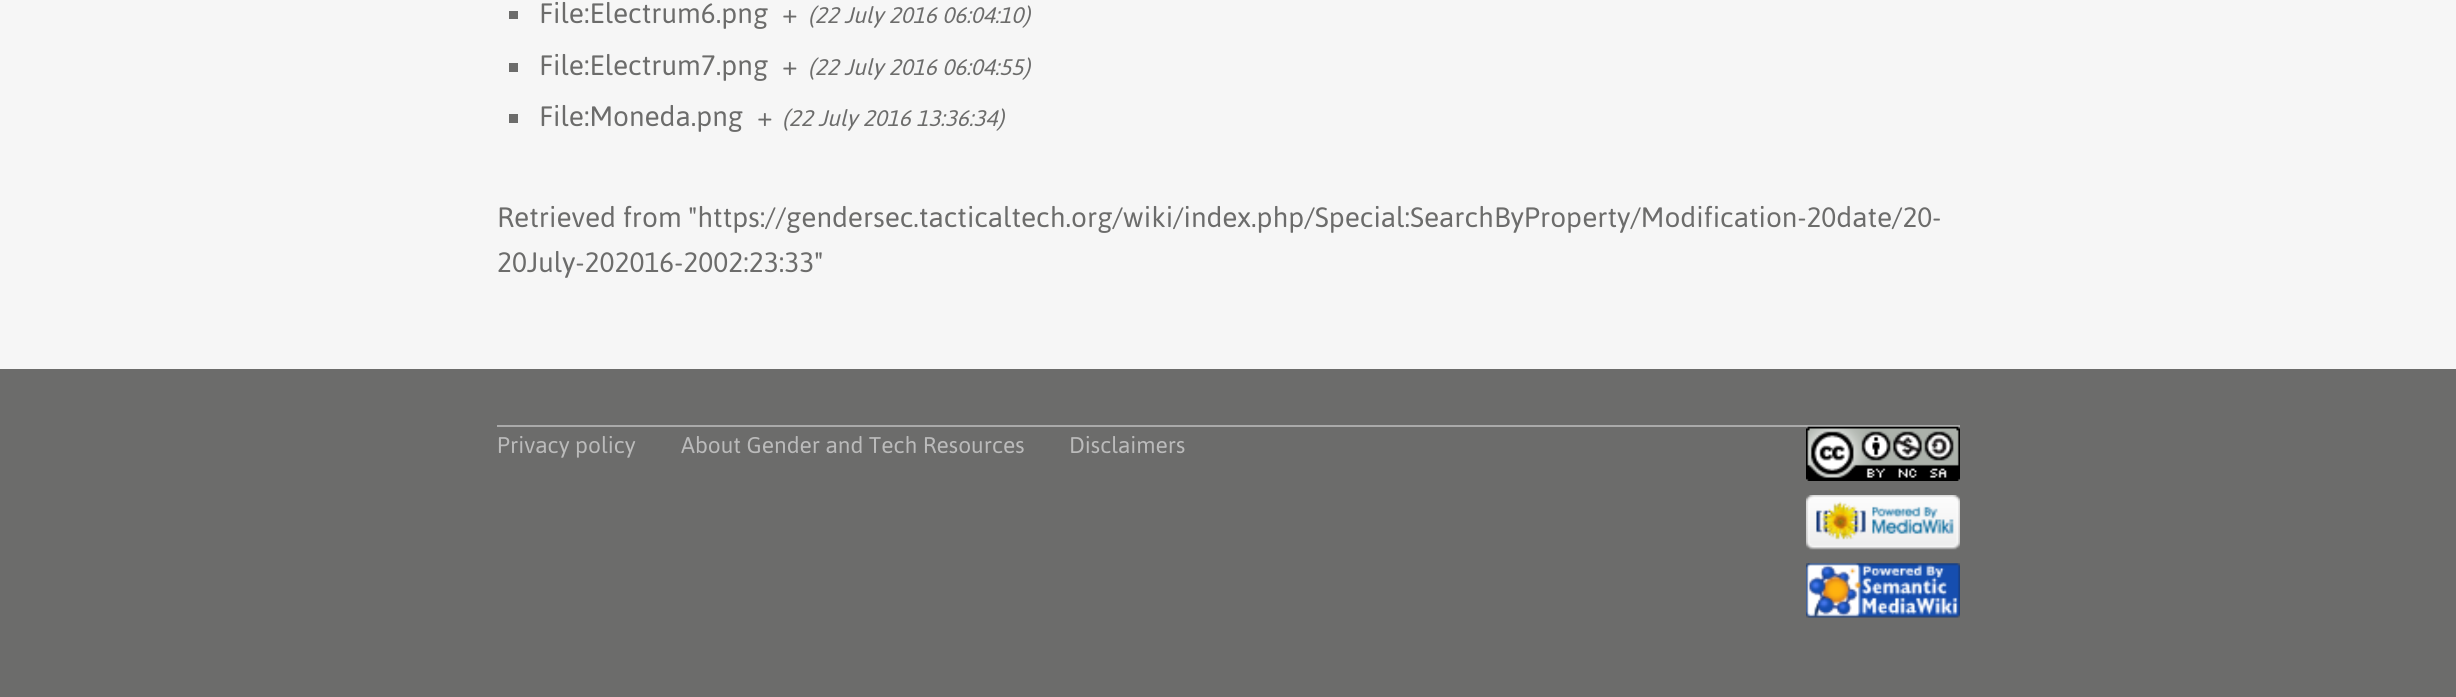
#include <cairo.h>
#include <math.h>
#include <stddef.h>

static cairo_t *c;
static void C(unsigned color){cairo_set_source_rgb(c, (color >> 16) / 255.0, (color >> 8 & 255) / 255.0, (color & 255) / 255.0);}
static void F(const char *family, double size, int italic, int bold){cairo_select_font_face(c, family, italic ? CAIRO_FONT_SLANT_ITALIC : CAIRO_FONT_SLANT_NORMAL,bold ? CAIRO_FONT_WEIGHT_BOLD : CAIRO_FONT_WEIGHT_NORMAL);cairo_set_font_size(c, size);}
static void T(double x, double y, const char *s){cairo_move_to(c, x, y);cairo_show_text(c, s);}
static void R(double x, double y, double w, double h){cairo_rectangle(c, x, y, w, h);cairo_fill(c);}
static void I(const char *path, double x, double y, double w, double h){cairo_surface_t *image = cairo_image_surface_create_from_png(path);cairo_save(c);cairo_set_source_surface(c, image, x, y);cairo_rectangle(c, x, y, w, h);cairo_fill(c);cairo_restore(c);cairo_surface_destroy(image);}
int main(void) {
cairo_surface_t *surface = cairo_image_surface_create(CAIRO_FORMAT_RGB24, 2456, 697);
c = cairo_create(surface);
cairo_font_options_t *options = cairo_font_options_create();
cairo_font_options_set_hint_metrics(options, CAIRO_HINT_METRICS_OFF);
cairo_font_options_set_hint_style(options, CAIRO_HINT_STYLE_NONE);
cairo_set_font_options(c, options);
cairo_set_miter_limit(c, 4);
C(0xf6f6f6);
cairo_paint(c);
C(0x6c6c6b);
R(509,11,9,8);
F("Asap",28,0,0);
T(539,23,"File:Electrum6.png");
T(782,23,"+");
F("Asap",22.5,1,0);
T(808,23,"(22 July 2016 06:04:10)");
R(509,63,9,9);
F("Asap",28,0,0);
T(539,75,"File:Electrum7.png");
T(782,75,"+");
F("Asap",22.5,1,0);
T(808,75,"(22 July 2016 06:04:55)");
R(509,114,9,9);
F("Asap",28,0,0);
T(539,126,"File:Moneda.png");
T(757,126,"+");
F("Asap",22.5,1,0);
T(782,126,"(22 July 2016 13:36:34)");
F("Asap",28,0,0);
T(497,227,"Retrieved from \"https://gendersec.tacticaltech.org/wiki/index.php/Special:SearchByProperty/Modification-20date/20-");
T(497,272,"20July-202016-2002:23:33\"");
R(0,369,2456,328);
C(0xaaaaaa);
R(497,425,1463,2);
F("Asap",22.7,0,0);
C(0xbbbbbb);
T(497,453,"Privacy policy");
T(681,453,"About Gender and Tech Resources");
T(1069,453,"Disclaimers");
I("1.png",1806,426,154,55);
I("2.png",1806,495,154,55);
I("3.png",1806,563,154,55);
cairo_surface_write_to_png(surface, "o.png");
cairo_font_options_destroy(options);
cairo_destroy(c);
cairo_surface_destroy(surface);
return 0;
}
